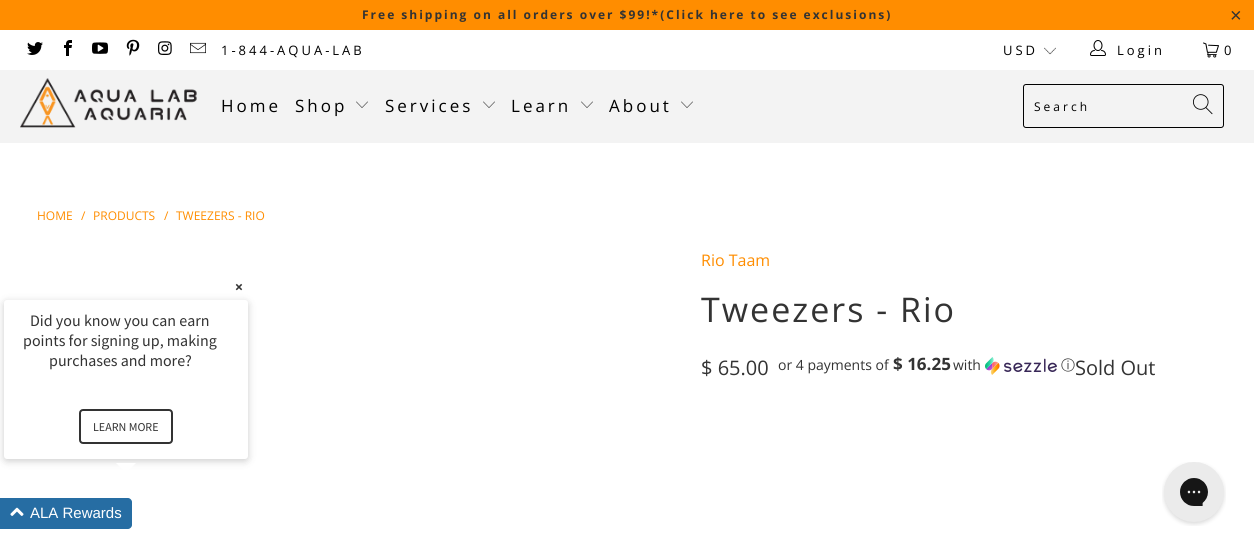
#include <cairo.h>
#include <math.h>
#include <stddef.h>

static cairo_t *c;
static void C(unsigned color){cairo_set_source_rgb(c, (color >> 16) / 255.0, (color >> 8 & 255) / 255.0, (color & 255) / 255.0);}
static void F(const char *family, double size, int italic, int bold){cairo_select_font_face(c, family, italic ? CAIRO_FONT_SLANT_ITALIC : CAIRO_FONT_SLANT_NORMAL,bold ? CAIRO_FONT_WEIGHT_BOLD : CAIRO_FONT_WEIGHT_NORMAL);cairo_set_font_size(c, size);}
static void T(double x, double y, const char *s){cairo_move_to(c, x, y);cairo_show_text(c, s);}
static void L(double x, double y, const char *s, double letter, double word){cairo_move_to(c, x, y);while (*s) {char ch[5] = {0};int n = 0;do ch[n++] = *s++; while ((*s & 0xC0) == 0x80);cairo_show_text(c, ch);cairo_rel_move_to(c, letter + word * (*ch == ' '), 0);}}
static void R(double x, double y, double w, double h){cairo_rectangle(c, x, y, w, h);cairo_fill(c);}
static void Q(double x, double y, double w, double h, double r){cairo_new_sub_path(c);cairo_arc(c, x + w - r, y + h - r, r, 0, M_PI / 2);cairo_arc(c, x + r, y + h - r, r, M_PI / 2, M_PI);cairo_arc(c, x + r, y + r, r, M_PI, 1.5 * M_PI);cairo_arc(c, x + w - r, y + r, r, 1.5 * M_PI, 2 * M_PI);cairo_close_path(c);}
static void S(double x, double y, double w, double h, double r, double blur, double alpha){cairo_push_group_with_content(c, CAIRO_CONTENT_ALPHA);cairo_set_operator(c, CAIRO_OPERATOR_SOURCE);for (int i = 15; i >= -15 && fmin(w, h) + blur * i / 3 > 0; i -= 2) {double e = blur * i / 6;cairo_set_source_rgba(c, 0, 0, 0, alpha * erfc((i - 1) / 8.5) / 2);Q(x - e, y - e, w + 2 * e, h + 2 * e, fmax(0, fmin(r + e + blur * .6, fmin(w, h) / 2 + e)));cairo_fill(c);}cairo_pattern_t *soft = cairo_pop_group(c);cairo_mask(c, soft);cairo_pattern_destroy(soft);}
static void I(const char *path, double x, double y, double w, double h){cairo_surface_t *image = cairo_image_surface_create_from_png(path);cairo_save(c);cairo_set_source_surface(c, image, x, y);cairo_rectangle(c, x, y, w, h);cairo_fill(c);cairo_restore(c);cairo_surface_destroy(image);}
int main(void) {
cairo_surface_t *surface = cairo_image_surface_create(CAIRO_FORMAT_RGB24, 1254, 549);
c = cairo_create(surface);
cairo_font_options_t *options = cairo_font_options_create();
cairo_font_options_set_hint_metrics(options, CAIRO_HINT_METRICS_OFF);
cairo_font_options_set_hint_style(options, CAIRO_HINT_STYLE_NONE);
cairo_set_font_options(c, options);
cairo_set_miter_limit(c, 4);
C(0xffffff);
cairo_paint(c);
C(0xff8d00);
R(0,0,1254,30);
F("Open Sans",12,0,1);
C(0x333333);
L(362,19,"Free shipping on all orders over $99!*(Click here to see exclusions)",2,0);
F("Liberation Sans",20,0,0);
L(1230,22,"×",2,0);
I("1.png",27,42,16,13);
I("2.png",64,40,8,16);
I("3.png",92,42,16,12);
I("4.png",126,39,14,17);
I("5.png",158,41,14,14);
I("6.png",190,42,16,12);
F("Open Sans",13,0,0);
C(0x000000);
L(221,55,"1-844-AQUA-LAB",3,0);
I("7.png",1044,47,12,8);
L(1003,55,"USD",3,0);
I("8.png",1090,40,16,16);
L(1117,55,"Login",3,0);
I("9.png",1203,42,16,16);
L(1224,55,"0",3,0);
C(0xf3f3f3);
R(0,70,1254,73);
I("10.png",20,78,177,50);
F("Open Sans",17,0,0);
C(0x000000);
L(221,112,"Home",3,0);
L(295,112,"Shop",3,0);
I("11.png",356,101,12,7);
L(385,112,"Services",3,0);
I("11.png",483,101,12,7);
L(511,112,"Learn",3,0);
I("11.png",581,101,12,7);
L(609,112,"About",3,0);
I("11.png",681,101,12,7);
I("12.png",1193,94,20,21);
Q(1023.5,84.5,200,43,2.5);
cairo_set_line_width(c,1);
cairo_stroke(c);
F("Open Sans",12,0,0);
L(1034,111,"Search",3,0);
C(0xff8d00);
T(37,220,"HOME");
T(81,220,"/");
T(93,220,"PRODUCTS");
T(164,220,"/");
T(176,220,"TWEEZERS - RIO");
F("Open Sans",16,0,0);
T(701,266,"Rio Taam");
F("Open Sans",34,0,0);
C(0x333333);
L(701,322,"Tweezers - Rio",2,0);
F("Open Sans",20,0,0);
T(701,375,"$ 65.00");
F("Open Sans",14,0,0);
T(778,370,"or 4 payments of");
F("Open Sans",17,0,1);
T(893,370,"$ 16.25");
F("Open Sans",14,0,0);
T(953,370,"with");
I("13.png",985,357,72,18);
F("WenQuanYi Zen Hei Medium",14,0,0);
T(1061,370,"ⓘ");
F("Open Sans",20,0,0);
T(1075,375,"Sold Out");
F("Source Sans Pro",15,0,1);
T(235,292,"×");
C(0x000000);
S(4,302,244,159,3,4,.2);
C(0xffffff);
Q(4,300,244,159,3);
cairo_fill(c);
F("Source Sans Pro",16,0,0);
C(0x333333);
T(30,326,"Did you know you can earn");
T(23,346,"points for signing up, making");
T(49,366,"purchases and more?");
Q(80,410,92,33,3);
cairo_set_line_width(c,2);
cairo_stroke(c);
F("Source Sans Pro",12,0,0);
T(93,431,"LEARN MORE");
C(0xffffff);
cairo_new_path(c);
cairo_move_to(c,116,463);
cairo_line_to(c,136,463);
cairo_line_to(c,126,473);
cairo_close_path(c);
cairo_fill(c);
C(0x266da3);
cairo_new_path(c);
cairo_move_to(c,0,498);
cairo_line_to(c,128,498);
cairo_curve_to(c,130,498,132,500,132,502);
cairo_line_to(c,132,525);
cairo_curve_to(c,132,527,130,529,128,529);
cairo_line_to(c,0,529);
cairo_close_path(c);
cairo_fill(c);
I("14.png",10,507,14,9);
F("Liberation Sans",15,0,0);
C(0xffffff);
T(30,518,"ALA Rewards");
I("15.png",1162,462,64,64);
cairo_surface_write_to_png(surface, "o.png");
cairo_font_options_destroy(options);
cairo_destroy(c);
cairo_surface_destroy(surface);
return 0;
}
